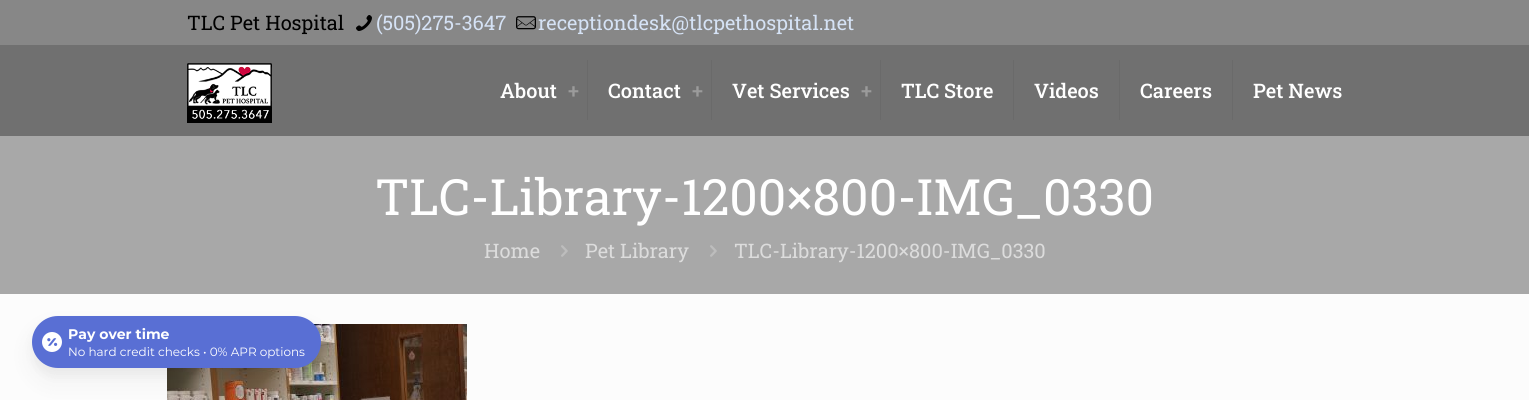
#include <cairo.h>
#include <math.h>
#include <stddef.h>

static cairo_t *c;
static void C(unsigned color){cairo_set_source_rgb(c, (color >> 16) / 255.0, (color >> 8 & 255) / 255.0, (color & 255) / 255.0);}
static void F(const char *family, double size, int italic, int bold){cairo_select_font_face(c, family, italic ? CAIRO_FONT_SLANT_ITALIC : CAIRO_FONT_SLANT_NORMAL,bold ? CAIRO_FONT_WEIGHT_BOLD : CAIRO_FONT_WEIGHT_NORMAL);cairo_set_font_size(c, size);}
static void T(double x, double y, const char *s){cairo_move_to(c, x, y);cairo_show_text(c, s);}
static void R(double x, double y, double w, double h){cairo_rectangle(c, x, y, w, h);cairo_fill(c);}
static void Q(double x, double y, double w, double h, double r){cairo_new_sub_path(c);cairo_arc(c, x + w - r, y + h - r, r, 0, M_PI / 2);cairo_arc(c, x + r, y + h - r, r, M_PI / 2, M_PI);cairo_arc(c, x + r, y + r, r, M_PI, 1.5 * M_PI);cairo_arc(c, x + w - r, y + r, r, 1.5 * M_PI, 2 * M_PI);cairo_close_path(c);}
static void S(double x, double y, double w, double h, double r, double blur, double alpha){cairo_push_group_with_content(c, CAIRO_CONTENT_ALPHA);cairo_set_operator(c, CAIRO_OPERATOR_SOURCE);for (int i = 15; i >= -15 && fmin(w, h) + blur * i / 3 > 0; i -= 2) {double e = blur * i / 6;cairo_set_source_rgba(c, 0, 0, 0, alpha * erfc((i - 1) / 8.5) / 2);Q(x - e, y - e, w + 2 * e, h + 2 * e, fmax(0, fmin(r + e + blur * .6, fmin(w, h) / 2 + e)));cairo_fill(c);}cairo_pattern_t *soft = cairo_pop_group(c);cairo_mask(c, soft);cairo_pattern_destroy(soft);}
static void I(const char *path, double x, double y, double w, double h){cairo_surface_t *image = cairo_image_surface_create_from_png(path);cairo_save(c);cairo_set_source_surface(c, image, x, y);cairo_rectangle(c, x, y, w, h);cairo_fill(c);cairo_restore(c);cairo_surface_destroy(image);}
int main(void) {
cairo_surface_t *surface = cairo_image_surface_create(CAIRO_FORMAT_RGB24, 1529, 400);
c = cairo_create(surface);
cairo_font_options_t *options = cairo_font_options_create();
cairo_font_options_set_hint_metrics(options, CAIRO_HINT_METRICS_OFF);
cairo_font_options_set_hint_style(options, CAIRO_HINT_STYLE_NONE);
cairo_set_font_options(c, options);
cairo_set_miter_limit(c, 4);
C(0xfcfcfc);
cairo_paint(c);
C(0x707070);
R(0,45,1529,91);
C(0x878787);
R(0,0,1529,45);
F("Roboto Slab",20,0,0);
C(0x000000);
T(187,30,"TLC Pet Hospital");
I("1.png",356,15,16,16);
C(0xd5e2f5);
T(376,30,"(505)275-3647");
I("2.png",516,16,20,14);
T(538,30,"receptiondesk@tlcpethospital.net");
I("3.png",187,63,85,60);
C(0x6a6a6a);
R(587,60,1,60);
F("Roboto Slab Medium",20,0,0);
C(0xffffff);
T(500,98,"About");
C(0x9b9b9b);
T(568,98,"+");
C(0x6a6a6a);
R(711,60,1,60);
C(0xffffff);
T(608,98,"Contact");
C(0x9b9b9b);
T(692,98,"+");
C(0x6a6a6a);
R(880,60,1,60);
C(0xffffff);
T(732,98,"Vet Services");
C(0x9b9b9b);
T(861,98,"+");
C(0x6a6a6a);
R(1013,60,1,60);
C(0xffffff);
T(901,98,"TLC Store");
C(0x6a6a6a);
R(1119,60,1,60);
C(0xffffff);
T(1034,98,"Videos");
C(0x6a6a6a);
R(1232,60,1,60);
C(0xffffff);
T(1140,98,"Careers");
T(1253,98,"Pet News");
C(0xa8a8a8);
R(0,136,1529,158);
F("Roboto Slab",50,0,0);
C(0xffffff);
T(375,215,"TLC-Library-1200×800-IMG_0330");
F("Roboto Slab",20,0,0);
C(0xdcdcdc);
T(484,258,"Home");
I("4.png",561,245,7,12);
T(585,258,"Pet Library");
I("4.png",710,245,7,12);
T(734,258,"TLC-Library-1200×800-IMG_0330");
I("5.png",167,324,300,76);
C(0x000000);
S(32,322,289,52,26,6,.04);
S(32,329,289,52,26,12,.05);
C(0x596fd4);
Q(32,316,289,52,26);
cairo_fill(c);
I("6.png",42,332,20,20);
F("Montserrat",14,0,1);
C(0xffffff);
T(68,339,"Pay over time");
F("Montserrat",12,0,0);
T(68,356,"No hard credit checks • 0% APR options");
cairo_surface_write_to_png(surface, "o.png");
cairo_font_options_destroy(options);
cairo_destroy(c);
cairo_surface_destroy(surface);
return 0;
}
